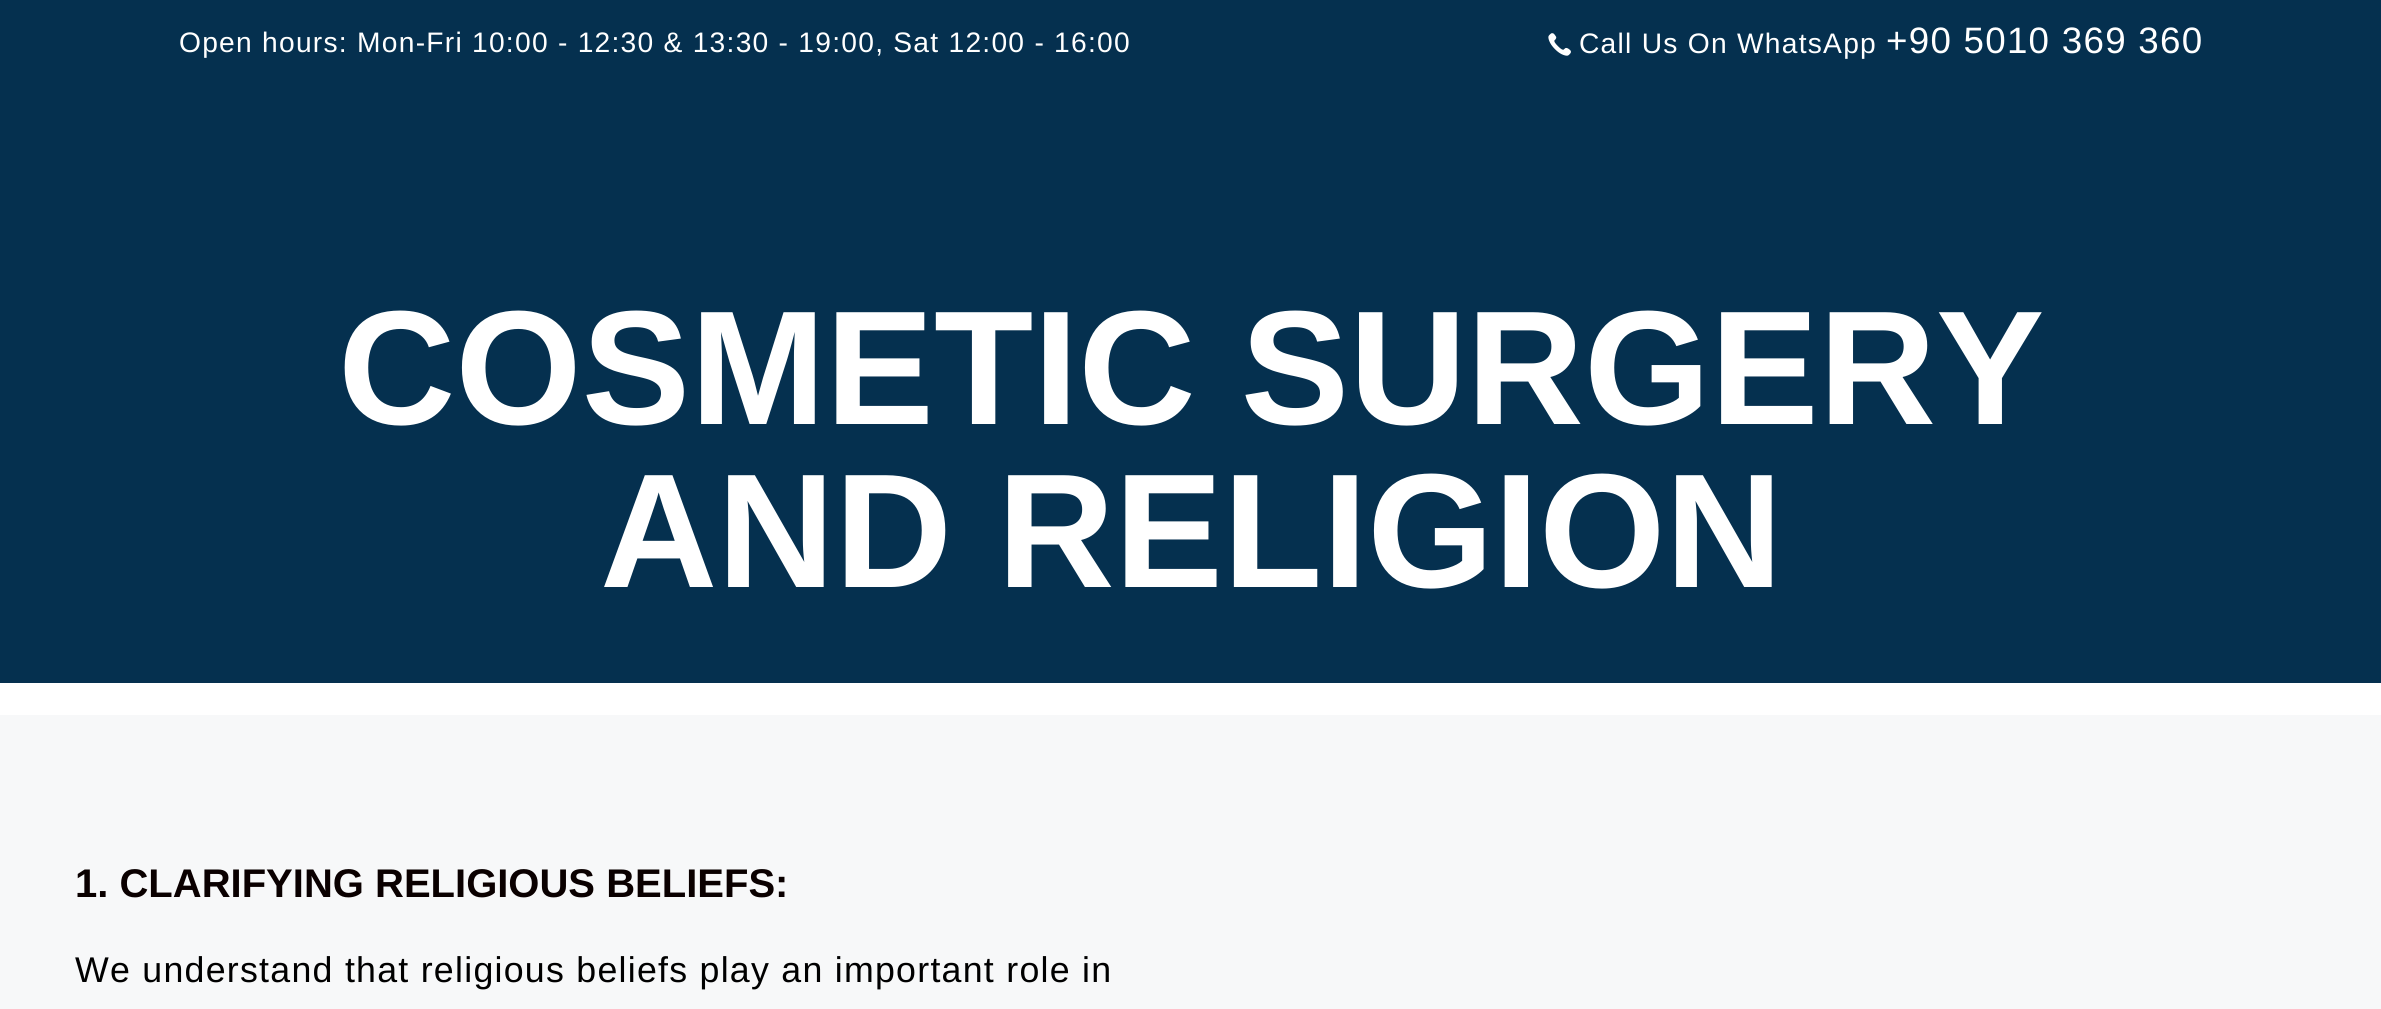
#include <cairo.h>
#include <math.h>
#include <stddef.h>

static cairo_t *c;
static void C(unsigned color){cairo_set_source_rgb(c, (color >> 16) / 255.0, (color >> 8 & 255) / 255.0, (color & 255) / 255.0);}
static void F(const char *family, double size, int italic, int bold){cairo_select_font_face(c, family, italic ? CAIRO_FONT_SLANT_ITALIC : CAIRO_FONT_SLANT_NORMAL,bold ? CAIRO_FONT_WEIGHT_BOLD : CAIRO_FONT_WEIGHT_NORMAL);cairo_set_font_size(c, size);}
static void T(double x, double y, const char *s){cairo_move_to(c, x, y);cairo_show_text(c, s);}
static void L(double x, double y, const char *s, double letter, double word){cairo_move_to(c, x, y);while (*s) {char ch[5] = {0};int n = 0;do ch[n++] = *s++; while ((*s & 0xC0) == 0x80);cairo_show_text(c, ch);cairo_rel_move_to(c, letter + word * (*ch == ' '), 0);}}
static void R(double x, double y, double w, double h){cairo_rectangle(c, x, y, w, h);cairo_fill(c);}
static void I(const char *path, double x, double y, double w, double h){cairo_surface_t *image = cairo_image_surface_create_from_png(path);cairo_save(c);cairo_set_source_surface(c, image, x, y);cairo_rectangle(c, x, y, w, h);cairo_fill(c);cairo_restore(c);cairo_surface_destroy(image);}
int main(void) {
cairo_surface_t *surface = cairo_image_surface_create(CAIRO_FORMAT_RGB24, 2381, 1009);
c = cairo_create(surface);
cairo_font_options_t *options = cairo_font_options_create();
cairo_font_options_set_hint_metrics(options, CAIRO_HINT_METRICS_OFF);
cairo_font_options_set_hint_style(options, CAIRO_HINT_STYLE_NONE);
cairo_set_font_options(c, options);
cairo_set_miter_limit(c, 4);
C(0xffffff);
cairo_paint(c);
C(0x05304f);
R(0,0,2381,683);
F("Liberation Sans",28.2,0,0);
C(0xffffff);
L(179,52,"Open hours: Mon-Fri 10:00 - 12:30 & 13:30 - 19:00, Sat 12:00 - 16:00",1.25,0);
I("1.png",1548,33,23,23);
L(1579,53,"Call Us On WhatsApp",1.25,0);
F("Liberation Sans",36.75,0,0);
L(1886,53,"+90 5010 369 360",1.25,0);
F("Liberation Sans",162.5,0,1);
T(338,424,"COSMETIC SURGERY");
T(600,587,"AND RELIGION");
C(0xf7f8f9);
R(0,715,2381,294);
F("Liberation Sans",40,0,1);
C(0x0a0000);
T(75,897,"1. CLARIFYING RELIGIOUS BELIEFS:");
F("Liberation Sans",35.75,0,0);
C(0x000000);
L(75,982,"We understand that religious beliefs play an important role in",1.25,0);
cairo_surface_write_to_png(surface, "o.png");
cairo_font_options_destroy(options);
cairo_destroy(c);
cairo_surface_destroy(surface);
return 0;
}
